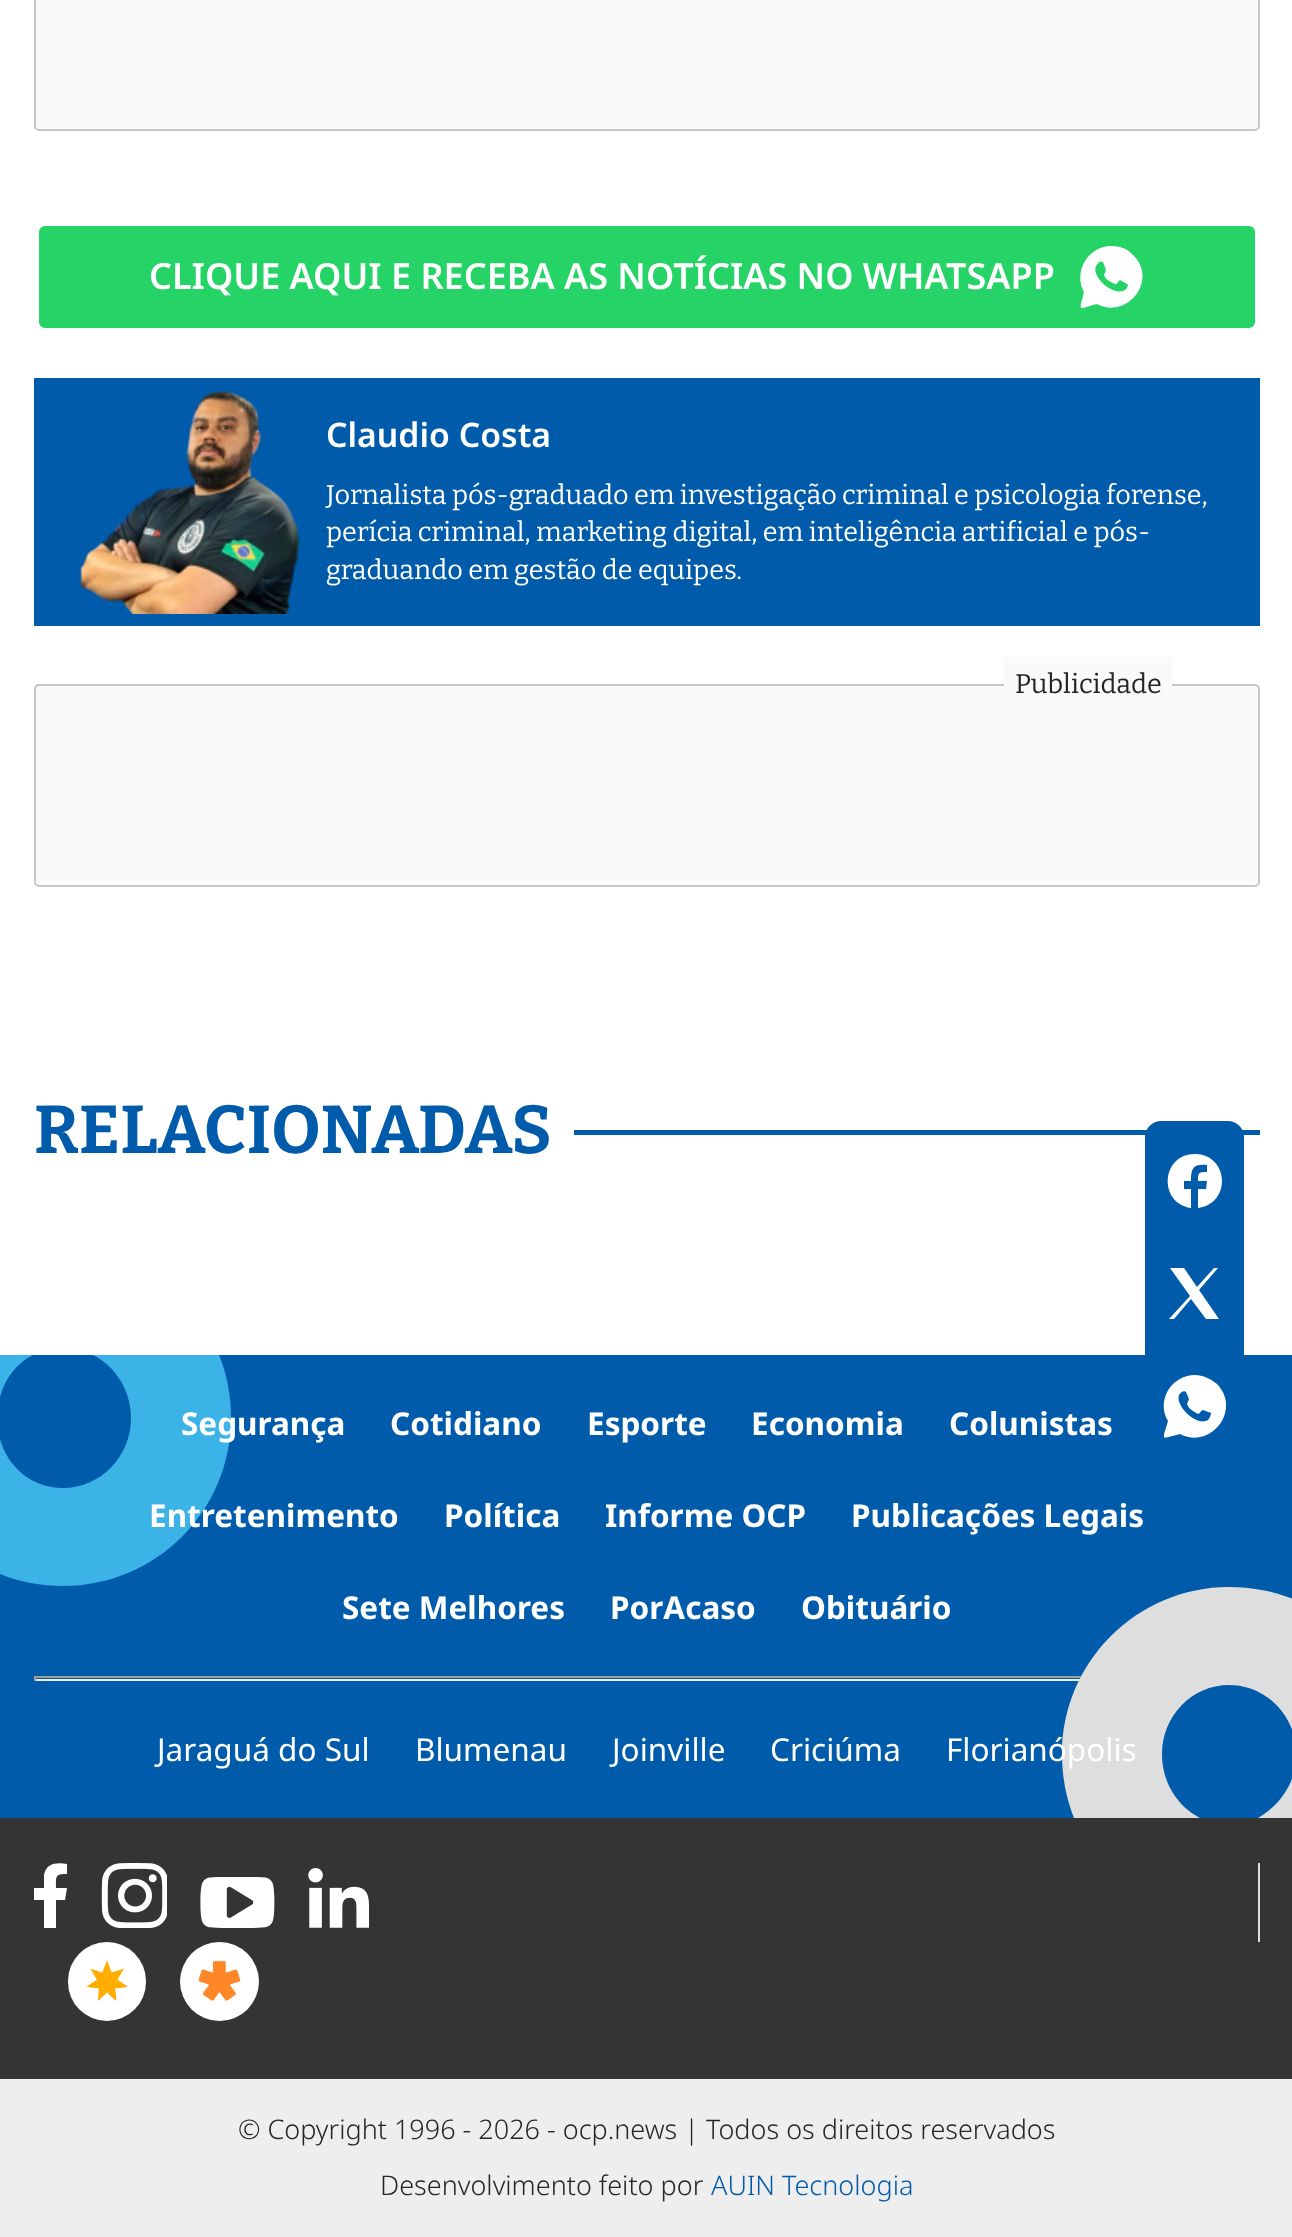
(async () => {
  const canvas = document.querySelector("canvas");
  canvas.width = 1292;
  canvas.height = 2237;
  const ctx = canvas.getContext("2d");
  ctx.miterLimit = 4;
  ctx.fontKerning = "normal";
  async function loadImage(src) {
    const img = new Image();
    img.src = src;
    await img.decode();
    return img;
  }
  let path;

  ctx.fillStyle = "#ffffff";
  ctx.fillRect(0, 0, 1292, 2237);
  ctx.fillStyle = "#fafafa";
  ctx.beginPath();
  ctx.roundRect(35, -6, 1224, 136, 4);
  ctx.fill();
  ctx.strokeStyle = "#c7c7c7";
  ctx.lineWidth = 2;
  ctx.stroke();
  ctx.fillStyle = "#25d366";
  ctx.beginPath();
  ctx.roundRect(36.5, 223.5, 1221, 107, 8.5);
  ctx.fill();
  ctx.strokeStyle = "#ffffff";
  ctx.lineWidth = 5;
  ctx.stroke();
  ctx.fillStyle = "#ffffff";
  path = new Path2D("M1111 246C1088 246 1073 272 1084 292C1079 313 1077 309 1097 304C1127 320 1159 280 1133 255C1128 249 1120 246 1111 246ZM1127 288L1125 290C1114 297 1091 277 1096 266C1097 264 1100 260 1103 262L1106 270L1104 275C1105 277 1107 280 1109 281L1115 284C1117 285 1118 281 1120 280L1127 284L1128 285Z");
  ctx.fill(path);
  ctx.fillStyle = "#005baa";
  ctx.fillRect(34, 378, 1226, 248);
  ctx.drawImage(await loadImage("img/1.png"), 80, 390, 220, 224);
  ctx.fillRect(574, 1130, 686, 5);
  ctx.fillRect(0, 1355, 1292, 463);
  ctx.beginPath();
  ctx.roundRect(1145, 1121, 99, 360, 16);
  ctx.fill();
  ctx.fillStyle = "#ffffff";
  path = new Path2D("M1195 1154C1161 1154 1158 1203 1191 1208V1189H1184V1181H1191C1191 1168 1193 1164 1207 1165V1172C1198 1172 1198 1173 1198 1181H1207L1206 1189H1198V1208C1232 1204 1229 1154 1195 1154Z");
  ctx.fill(path);
  path = new Path2D("M1170 1268L1190 1296L1169 1319H1174L1191 1299L1206 1319H1219L1199 1290L1218 1268H1214L1197 1287L1184 1268Z");
  ctx.fill(path);
  path = new Path2D("M1195 1375C1171 1375 1156 1401 1168 1421C1162 1442 1160 1439 1180 1434C1211 1450 1242 1410 1217 1384C1211 1379 1203 1375 1195 1375ZM1210 1417L1208 1420C1197 1427 1175 1406 1179 1395C1180 1393 1184 1390 1186 1392L1189 1399L1187 1404C1188 1407 1190 1409 1193 1411L1198 1414C1200 1414 1201 1410 1203 1410L1211 1413V1414Z");
  ctx.fill(path);
  ctx.fillStyle = "#fafafa";
  ctx.beginPath();
  ctx.roundRect(35, 685, 1224, 201, 4);
  ctx.fill();
  ctx.strokeStyle = "#c7c7c7";
  ctx.lineWidth = 2;
  ctx.stroke();
  ctx.fillRect(1004, 657, 168, 29);
  ctx.fillStyle = "#3bb3e7";
  path = new Path2D("M63 1488C33 1488 8 1468 0 1439V1574C19 1582 41 1586 63 1586C156 1586 231 1511 231 1418C231 1396 227 1374 219 1355H93C115 1366 131 1390 131 1418C131 1457 100 1488 63 1488ZM0 1355V1397C5 1378 17 1363 33 1355Z");
  ctx.fill(path, "evenodd");
  for (const [x, y, w, h, color] of [
    [34, 1676, 1048, 2, "#9f9f9f"],
    [34, 1679, 1046, 2, "#eeeeee"],
    [34, 1676, 2, 5, "#9f9f9f"],
  ]) {
    ctx.fillStyle = color;
    ctx.fillRect(x, y, w, h);
  }
  ctx.fillStyle = "#dedede";
  path = new Path2D("M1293 1818V1776C1287 1794 1274 1809 1258 1818ZM1229 1685C1259 1685 1284 1705 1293 1732V1599C1273 1591 1252 1587 1229 1587C1137 1587 1062 1662 1062 1754C1062 1777 1066 1798 1074 1818H1200C1177 1806 1162 1782 1162 1754C1162 1716 1192 1685 1229 1685Z");
  ctx.fill(path, "evenodd");
  ctx.fillStyle = "#343434";
  ctx.fillRect(0, 1818, 1292, 261);
  ctx.fillStyle = "#dedede";
  ctx.fillRect(1258, 1863, 2, 79);
  ctx.fillStyle = "#ffffff";
  path = new Path2D("M65 1900L67 1888H56C56 1876 55 1874 67 1874V1864C57 1862 46 1863 44 1875V1888H34V1900H44V1928H56V1900Z");
  ctx.fill(path);
  ctx.drawImage(await loadImage("img/2.png"), 101, 1863, 66, 65);
  ctx.drawImage(await loadImage("img/3.png"), 200, 1877, 75, 51);
  ctx.drawImage(await loadImage("img/4.png"), 308, 1868, 61, 60);
  ctx.beginPath();
  ctx.roundRect(68, 1942, 78, 79, 39);
  ctx.fill();
  ctx.drawImage(await loadImage("img/5.png"), 86, 1960, 42, 41);
  ctx.beginPath();
  ctx.arc(219.5, 1981.5, 39.5, 0, Math.PI * 2);
  ctx.fill();
  ctx.drawImage(await loadImage("img/6.png"), 198, 1960, 43, 41);
  ctx.fillStyle = "#eeeeee";
  ctx.fillRect(0, 2079, 1292, 158);
  ctx.font = "600 36px Noto Sans";
  ctx.fillStyle = "#ffffff";
  ctx.fillText("CLIQUE AQUI E RECEBA AS NOTÍCIAS NO WHATSAPP", 149, 289);
  ctx.font = "600 33.75px Noto Sans";
  ctx.fillText("Claudio Costa", 326, 447);
  ctx.font = "27px Bitter";
  for (const [text, x, y] of [
    ["Jornalista pós-graduado em investigação criminal e psicologia forense,", 326, 504],
    ["perícia criminal, marketing digital, em inteligência artificial e pós-", 326, 541],
    ["graduando em gestão de equipes.", 326, 579],
  ]) {
    ctx.fillText(text, x, y);
  }
  ctx.fillStyle = "#272425";
  ctx.fillText("Publicidade", 1015, 693);
  ctx.font = "bold 67.5px Bitter";
  ctx.fillStyle = "#005baa";
  ctx.fillText("RELACIONADAS", 34, 1153);
  ctx.font = "bold 31.5px Noto Sans";
  ctx.fillStyle = "#ffffff";
  for (const [text, x, y] of [
    ["Segurança", 181, 1435],
    ["Cotidiano", 390, 1435],
    ["Esporte", 587, 1435],
    ["Economia", 751, 1435],
    ["Colunistas", 949, 1435],
    ["Entretenimento", 149, 1527],
    ["Política", 444, 1527],
    ["Informe OCP", 605, 1527],
    ["Publicações Legais", 851, 1527],
    ["Sete Melhores", 342, 1619],
    ["PorAcaso", 610, 1619],
    ["Obituário", 801, 1619],
  ]) {
    ctx.fillText(text, x, y);
  }
  ctx.font = "31.5px Noto Sans";
  for (const [text, x, y] of [
    ["Jaraguá do Sul", 157, 1761],
    ["Blumenau", 415, 1761],
    ["Joinville", 612, 1761],
    ["Criciúma", 770, 1761],
    ["Florianópolis", 946, 1761],
  ]) {
    ctx.fillText(text, x, y);
  }
  ctx.font = "300 27px Noto Sans";
  ctx.fillStyle = "#272425";
  ctx.fillText("© Copyright 1996 - 2026 - ocp.news | Todos os direitos reservados", 238, 2139);
  ctx.fillText("Desenvolvimento feito por", 380, 2195);
  ctx.fillStyle = "#005baa";
  ctx.fillText("AUIN Tecnologia", 711, 2195);
})();
